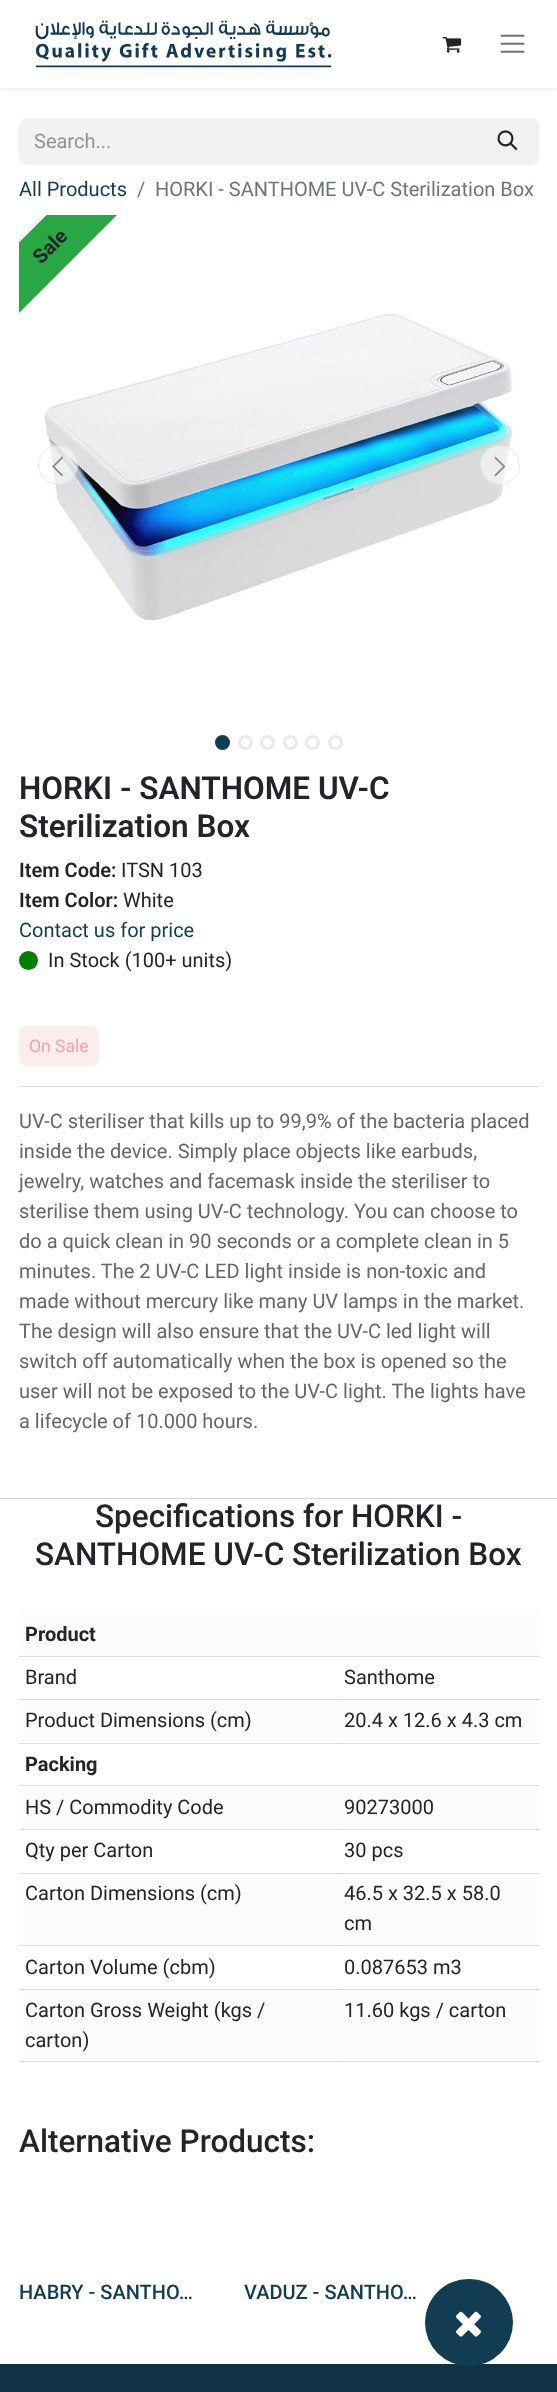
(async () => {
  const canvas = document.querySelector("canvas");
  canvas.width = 557;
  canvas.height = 2392;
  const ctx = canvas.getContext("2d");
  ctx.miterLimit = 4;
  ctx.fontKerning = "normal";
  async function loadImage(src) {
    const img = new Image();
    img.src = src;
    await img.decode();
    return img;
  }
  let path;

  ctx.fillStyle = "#ffffff";
  ctx.fillRect(0, 0, 557, 2392);
  for (const [x, y, w, h, color] of [
    [19, 1699, 521, 1, "#dededf"],
    [19, 1743, 521, 1, "#dededf"],
    [19, 1829, 521, 1, "#dededf"],
    [539, 1873, 1, 1, "#dededf"],
    [19, 1945, 521, 1, "#dededf"],
    [539, 1989, 1, 1, "#dededf"],
    [19, 2061, 521, 1, "#dededf"],
  ]) {
    ctx.fillStyle = color;
    ctx.fillRect(x, y, w, h);
  }
  ctx.fillStyle = "rgba(0, 0, 0, 0.1)";
  ctx.filter = "blur(2px)";
  ctx.beginPath();
  ctx.rect(0, 1, 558, 88);
  ctx.fill();
  ctx.filter = "none";
  ctx.fillStyle = "#ffffff";
  ctx.fillRect(0, 0, 557, 88);
  ctx.drawImage(await loadImage("img/1.png"), 35, 20, 297, 48);
  ctx.drawImage(await loadImage("img/2.png"), 442, 36, 20, 17);
  ctx.drawImage(await loadImage("img/3.png"), 500, 34, 25, 19);
  ctx.fillStyle = "#f3f2f2";
  ctx.beginPath();
  ctx.roundRect(19, 118, 459, 47, [8, 0, 0, 8]);
  ctx.fill();
  ctx.beginPath();
  ctx.roundRect(476.5, 118.5, 62, 46, [0, 7.5, 7.5, 0]);
  ctx.fill();
  ctx.strokeStyle = "#f3f2f2";
  ctx.stroke();
  ctx.drawImage(await loadImage("img/4.png"), 497, 130, 21, 21);
  ctx.save();
  ctx.beginPath();
  ctx.rect(19, 215, 520, 500);
  ctx.clip();
  ctx.fillStyle = "#28a745";
  path = new Path2D("M-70 331L135 127L170 162L-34 366Z");
  ctx.fill(path);
  ctx.restore();
  ctx.drawImage(await loadImage("img/5.png"), 44, 314, 470, 306);
  ctx.fillStyle = "rgba(255, 255, 255, 0.5)";
  ctx.beginPath();
  ctx.arc(58, 465, 20, 0, Math.PI * 2);
  ctx.fill();
  ctx.beginPath();
  ctx.arc(58, 465, 19.5, 0, Math.PI * 2);
  ctx.strokeStyle = "rgba(206, 212, 218, 0.5)";
  ctx.stroke();
  ctx.fillStyle = "rgba(33, 37, 41, 0.5)";
  path = new Path2D("M52 466.5L62 456.5L63 458L54.5 466.5L63 475L62 476.5Z");
  ctx.fill(path);
  ctx.fillStyle = "rgba(255, 255, 255, 0.5)";
  ctx.beginPath();
  ctx.arc(500, 465, 20, 0, Math.PI * 2);
  ctx.fill();
  ctx.beginPath();
  ctx.arc(500, 465, 19.5, 0, Math.PI * 2);
  ctx.stroke();
  ctx.fillStyle = "rgba(33, 37, 41, 0.5)";
  path = new Path2D("M505.5 466.5L495.5 476.5L494.5 475L503 466.5L494.5 458L495.5 456.5Z");
  ctx.fill(path);
  ctx.fillStyle = "#123c52";
  ctx.beginPath();
  ctx.arc(222.5, 742.5, 6, 0, Math.PI * 2);
  ctx.fill();
  ctx.strokeStyle = "#123c52";
  ctx.lineWidth = 3;
  ctx.stroke();
  ctx.beginPath();
  ctx.arc(245.5, 742.5, 6, 0, Math.PI * 2);
  ctx.strokeStyle = "#e7eaed";
  ctx.stroke();
  ctx.beginPath();
  ctx.arc(267.5, 742.5, 6, 0, Math.PI * 2);
  ctx.stroke();
  ctx.beginPath();
  ctx.arc(290.5, 742.5, 6, 0, Math.PI * 2);
  ctx.stroke();
  ctx.beginPath();
  ctx.arc(312.5, 742.5, 6, 0, Math.PI * 2);
  ctx.stroke();
  ctx.beginPath();
  ctx.arc(335.5, 742.5, 6, 0, Math.PI * 2);
  ctx.stroke();
  ctx.fillStyle = "#008000";
  ctx.beginPath();
  ctx.arc(28.5, 960.5, 9.5, 0, Math.PI * 2);
  ctx.fill();
  for (const [x, y, w, h, color] of [
    [19, 1086, 520, 1, "#dededf"],
    [0, 1498, 557, 1, "#ced4da"],
    [19, 1614, 520, 41, "#fcfcfc"],
    [19, 1656, 521, 1, "#dededf"],
    [338, 1699, 1, 1, "#c2c2c4"],
    [19, 1700, 520, 41, "#fcfcfc"],
    [338, 1743, 1, 1, "#c2c2c4"],
    [19, 1785, 521, 1, "#dededf"],
    [19, 1786, 520, 42, "#fcfcfc"],
    [338, 1829, 1, 1, "#c2c2c4"],
    [19, 1874, 520, 71, "#fcfcfc"],
    [19, 1873, 520, 1, "#dbdcdc"],
    [338, 1873, 1, 1, "#bfc1c1"],
    [338, 1945, 1, 1, "#c2c2c4"],
    [19, 1990, 520, 71, "#fcfcfc"],
    [19, 1989, 520, 1, "#dbdcdc"],
    [338, 1989, 1, 1, "#bfc1c1"],
    [338, 2061, 1, 1, "#c2c2c4"],
    [0, 2364, 557, 28, "#0f3345"],
  ]) {
    ctx.fillStyle = color;
    ctx.fillRect(x, y, w, h);
  }
  ctx.fillStyle = "#123c52";
  ctx.beginPath();
  ctx.roundRect(425, 2279, 88, 87, 43.5);
  ctx.fill();
  ctx.drawImage(await loadImage("img/6.png"), 456, 2311, 25, 26);
  ctx.font = "20px Roboto";
  ctx.fillStyle = "#909294";
  ctx.fillText("Search...", 34, 148);
  ctx.fillStyle = "#123c52";
  ctx.fillText("All Products", 19, 196);
  ctx.fillStyle = "#6c757d";
  ctx.fillText("/", 137, 196);
  ctx.fillText("HORKI - SANTHOME UV-C Sterilization Box", 155, 196);
  ctx.font = "bold 20px Roboto";
  ctx.fillStyle = "#212529";
  ctx.save();
  ctx.translate(41, 265);
  ctx.rotate(-45 * Math.PI / 180);
  ctx.fillText("Sale", 0, 0);
  ctx.restore();
  ctx.font = "600 31.5px Roboto";
  ctx.fillText("HORKI - SANTHOME UV-C", 19, 799);
  ctx.fillText("Sterilization Box", 19, 837);
  ctx.font = "600 20px Roboto";
  ctx.fillText("Item Code:", 19, 877);
  ctx.font = "20px Roboto";
  ctx.fillText("ITSN 103", 121, 877);
  ctx.font = "600 20px Roboto";
  ctx.fillText("Item Color:", 19, 907);
  ctx.font = "20px Roboto";
  ctx.fillText("White", 123, 907);
  ctx.fillStyle = "#123c52";
  ctx.fillText("Contact us for price", 19, 937);
  ctx.fillStyle = "#212529";
  ctx.fillText("In Stock (100+ units)", 48, 967);
  ctx.font = "17.5px Roboto";
  ctx.fillStyle = "#fe9f9f";
  ctx.fillText("On Sale", 29, 1052);
  ctx.fillStyle = "rgba(254, 159, 159, 0.2)";
  ctx.beginPath();
  ctx.roundRect(19, 1026, 80, 40, 8);
  ctx.fill();
  ctx.font = "20px Roboto";
  ctx.fillStyle = "#646669";
  for (const [text, x, y] of [
    ["UV-C steriliser that kills up to 99,9% of the bacteria placed", 19, 1128],
    ["inside the device. Simply place objects like earbuds,", 19, 1158],
    ["jewelry, watches and facemask inside the steriliser to", 19, 1188],
    ["sterilise them using UV-C technology. You can choose to", 19, 1218],
    ["do a quick clean in 90 seconds or a complete clean in 5", 19, 1248],
    ["minutes. The 2 UV-C LED light inside is non-toxic and", 19, 1278],
    ["made without mercury like many UV lamps in the market.", 19, 1308],
    ["The design will also ensure that the UV-C led light will", 19, 1338],
    ["switch off automatically when the box is opened so the", 19, 1368],
    ["user will not be exposed to the UV-C light. The lights have", 19, 1398],
    ["a lifecycle of 10.000 hours.", 19, 1428],
  ]) {
    ctx.fillText(text, x, y);
  }
  ctx.font = "500 31.5px Roboto";
  ctx.fillStyle = "#212529";
  ctx.fillText("Specifications for HORKI -", 95, 1527);
  ctx.fillText("SANTHOME UV-C Sterilization Box", 35, 1565);
  ctx.font = "bold 20px Roboto";
  ctx.fillText("Product", 25, 1641);
  ctx.font = "20px Roboto";
  for (const [text, x, y] of [
    ["Brand", 25, 1684],
    ["Santhome", 344, 1684],
    ["Product Dimensions (cm)", 25, 1727],
    ["20.4 x 12.6 x 4.3 cm", 344, 1727],
  ]) {
    ctx.fillText(text, x, y);
  }
  ctx.font = "bold 20px Roboto";
  ctx.fillText("Packing", 25, 1771);
  ctx.font = "20px Roboto";
  for (const [text, x, y] of [
    ["HS / Commodity Code", 25, 1814],
    ["90273000", 344, 1814],
    ["Qty per Carton", 25, 1857],
    ["30 pcs", 344, 1857],
    ["Carton Dimensions (cm)", 25, 1900],
    ["46.5 x 32.5 x 58.0", 344, 1900],
    ["cm", 344, 1930],
    ["Carton Volume (cbm)", 25, 1974],
    ["0.087653 m3", 344, 1974],
    ["Carton Gross Weight (kgs /", 25, 2017],
    ["carton)", 25, 2047],
    ["11.60 kgs / carton", 344, 2017],
  ]) {
    ctx.fillText(text, x, y);
  }
  ctx.font = "500 31.5px Roboto";
  ctx.fillText("Alternative Products:", 19, 2152);
  ctx.font = "500 20px Roboto";
  ctx.fillStyle = "#123c52";
  ctx.fillText("HABRY - SANTHO…", 19, 2299);
  ctx.fillText("VADUZ - SANTHO…", 244, 2299);
})();
